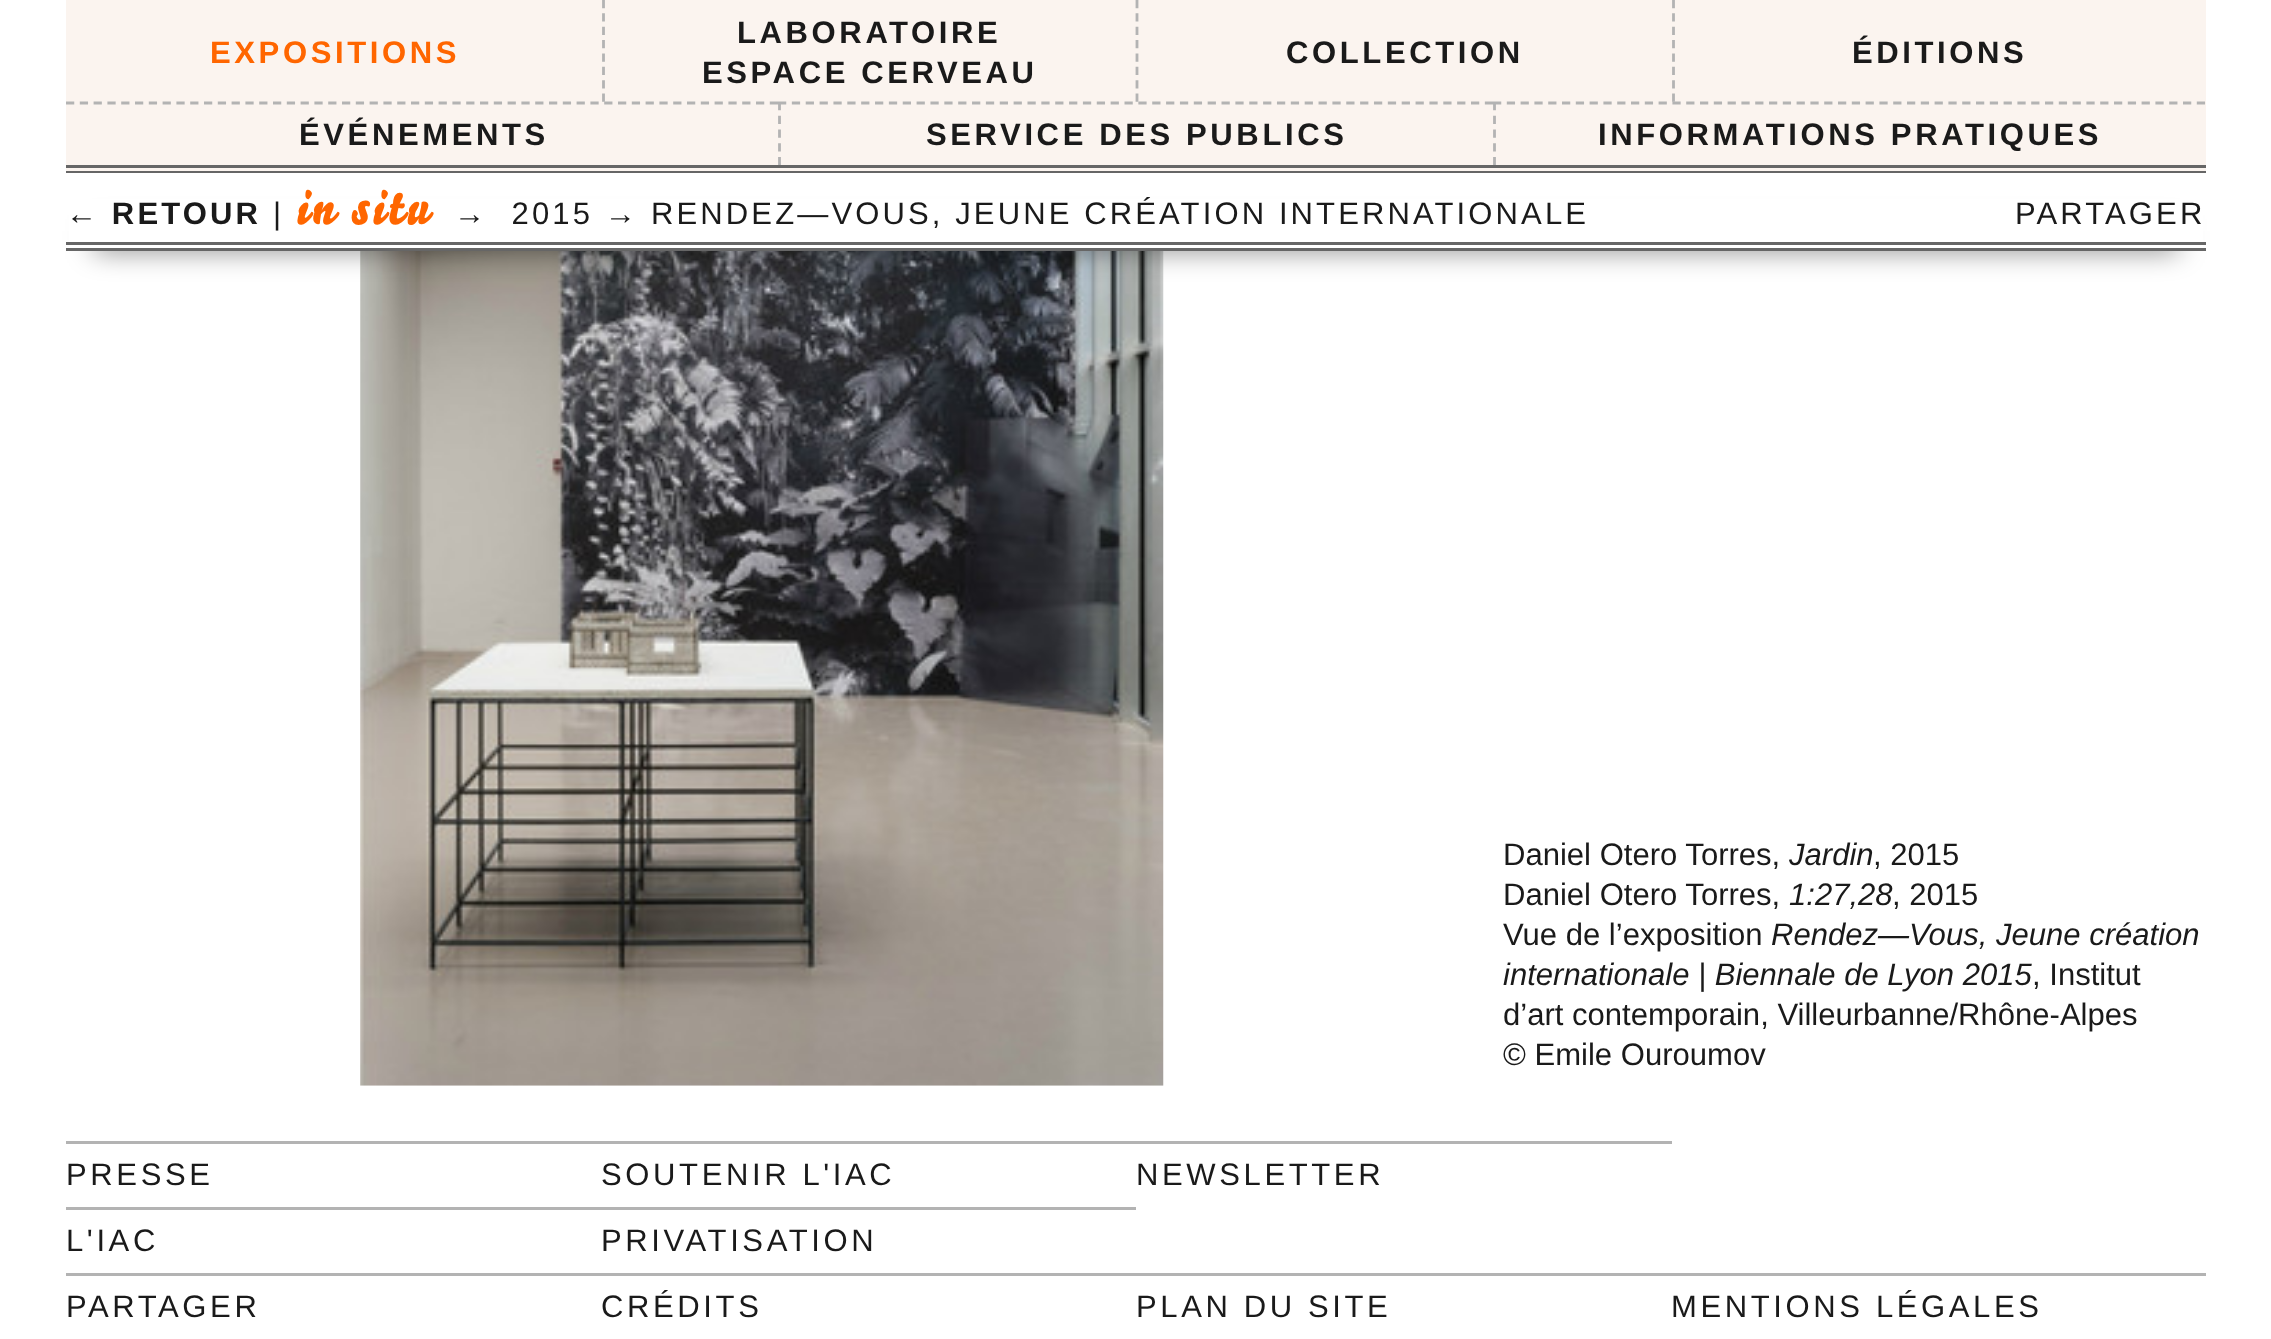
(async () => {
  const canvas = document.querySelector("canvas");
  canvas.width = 2271;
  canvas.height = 1339;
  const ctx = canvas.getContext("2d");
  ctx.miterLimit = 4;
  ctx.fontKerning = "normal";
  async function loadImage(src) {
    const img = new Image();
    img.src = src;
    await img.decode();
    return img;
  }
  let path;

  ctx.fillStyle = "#ffffff";
  ctx.fillRect(0, 0, 2271, 1339);
  for (const [x, y, w, h, color] of [
    [66, 0, 2140, 171, "#fbf4ef"],
    [66, 165, 2140, 3, "#666666"],
    [66, 171, 2140, 2, "#666666"],
  ]) {
    ctx.fillStyle = color;
    ctx.fillRect(x, y, w, h);
  }
  path = new Path2D("M603.5 0V102");
  ctx.strokeStyle = "#b3b3b3";
  ctx.lineWidth = 2.8;
  ctx.setLineDash([8.25, 5.12]);
  ctx.stroke(path);
  path = new Path2D("M1137 0V102");
  ctx.stroke(path);
  path = new Path2D("M1673.5 0V102");
  ctx.stroke(path);
  path = new Path2D("M66 103H778");
  ctx.setLineDash([8.25, 5.55]);
  ctx.stroke(path);
  path = new Path2D("M778 103H1493");
  ctx.setLineDash([8.25, 5.61]);
  ctx.stroke(path);
  path = new Path2D("M779.5 102V165");
  ctx.setLineDash([8.25, 5.5]);
  ctx.stroke(path);
  path = new Path2D("M1493 103H2205.5");
  ctx.setLineDash([8.25, 5.55]);
  ctx.stroke(path);
  path = new Path2D("M1494.5 102V165");
  ctx.setLineDash([8.25, 5.5]);
  ctx.stroke(path);
  ctx.drawImage(await loadImage("img/1.png"), 360, 251, 804, 835);
  ctx.fillStyle = "rgba(0, 0, 0, 0.5)";
  ctx.filter = "blur(14px)";
  ctx.beginPath();
  ctx.rect(94, 228, 2084, 22);
  ctx.fill();
  ctx.filter = "none";
  for (const [x, y, w, h, color] of [
    [69, 199, 2134, 49, "#ffffff"],
    [66, 242, 2140, 3, "#666666"],
    [66, 248, 2140, 3, "#666666"],
    [66, 1141, 1606, 3, "#b3b3b3"],
    [66, 1207, 1070, 3, "#b3b3b3"],
    [66, 1273, 2140, 3, "#b3b3b3"],
  ]) {
    ctx.fillStyle = color;
    ctx.fillRect(x, y, w, h);
  }
  ctx.letterSpacing = "3.6px";
  ctx.font = "bold 31.05px Liberation Sans";
  ctx.fillStyle = "#ff6600";
  ctx.fillText("EXPOSITIONS", 210, 63);
  ctx.fillStyle = "#1a1a1a";
  for (const [text, x, y] of [
    ["LABORATOIRE", 737, 43],
    ["ESPACE CERVEAU", 702, 83],
    ["COLLECTION", 1286, 63],
    ["ÉDITIONS", 1852, 63],
    ["ÉVÉNEMENTS", 299, 145],
    ["SERVICE DES PUBLICS", 926, 145],
    ["INFORMATIONS PRATIQUES", 1598, 145],
  ]) {
    ctx.fillText(text, x, y);
  }
  ctx.letterSpacing = "3.1px";
  ctx.fillText("← RETOUR", 66, 224);
  ctx.font = "31.05px Liberation Sans";
  ctx.fillText("|", 273, 224);
  ctx.font = "49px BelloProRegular";
  ctx.fillStyle = "#ff6600";
  ctx.fillText("in situ", 296, 224);
  ctx.font = "31.05px Liberation Sans";
  ctx.fillStyle = "#1a1a1a";
  for (const [text, x, y] of [
    ["→  2015 →", 454, 224],
    ["RENDEZ—VOUS, JEUNE CRÉATION INTERNATIONALE", 651, 224],
    ["PARTAGER", 2015, 224],
  ]) {
    ctx.fillText(text, x, y);
  }
  ctx.letterSpacing = "0px";
  ctx.fillText("Daniel Otero Torres,", 1503, 865);
  ctx.font = "italic 31.05px Liberation Sans";
  ctx.fillText("Jardin", 1789, 865);
  ctx.font = "31.05px Liberation Sans";
  ctx.fillText(", 2015", 1873, 865);
  ctx.fillText("Daniel Otero Torres,", 1503, 905);
  ctx.font = "italic 31.05px Liberation Sans";
  ctx.fillText("1:27,28", 1789, 905);
  ctx.font = "31.05px Liberation Sans";
  ctx.fillText(", 2015", 1892, 905);
  ctx.fillText("Vue de l’exposition", 1503, 945);
  ctx.font = "italic 31.05px Liberation Sans";
  ctx.fillText("Rendez—Vous, Jeune création", 1771, 945);
  ctx.fillText("internationale | Biennale de Lyon 2015", 1503, 985);
  ctx.font = "31.05px Liberation Sans";
  for (const [text, x, y] of [
    [", Institut", 2032, 985],
    ["d’art contemporain, Villeurbanne/Rhône-Alpes", 1503, 1025],
    ["© Emile Ouroumov", 1503, 1065],
  ]) {
    ctx.fillText(text, x, y);
  }
  ctx.letterSpacing = "3.6px";
  for (const [text, x, y] of [
    ["PRESSE", 66, 1185],
    ["SOUTENIR L'IAC", 601, 1185],
    ["NEWSLETTER", 1136, 1185],
    ["L'IAC", 66, 1251],
    ["PRIVATISATION", 601, 1251],
    ["PARTAGER", 66, 1317],
    ["CRÉDITS", 601, 1317],
    ["PLAN DU SITE", 1136, 1317],
    ["MENTIONS LÉGALES", 1671, 1317],
  ]) {
    ctx.fillText(text, x, y);
  }
})();
